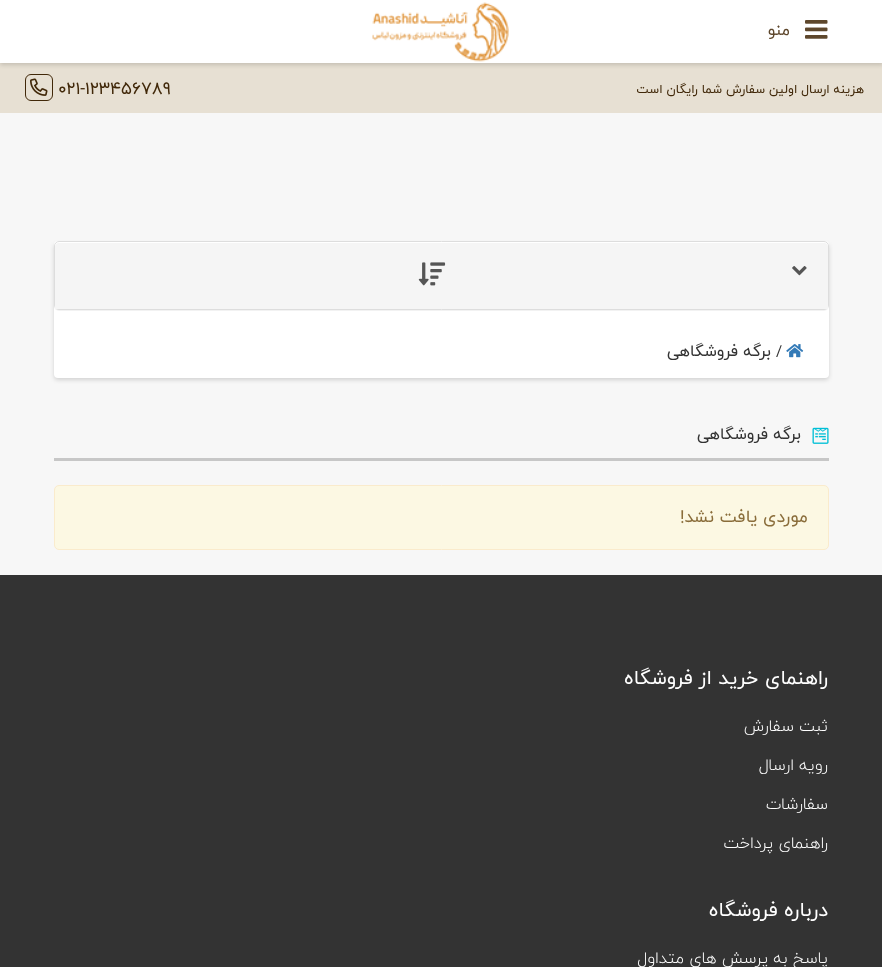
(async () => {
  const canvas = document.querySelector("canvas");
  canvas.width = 882;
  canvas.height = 967;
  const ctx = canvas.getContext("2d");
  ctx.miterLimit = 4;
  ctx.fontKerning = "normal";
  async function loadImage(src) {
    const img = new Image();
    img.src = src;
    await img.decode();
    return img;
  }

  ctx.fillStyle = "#e7e0d3";
  ctx.fillRect(0, 0, 882, 967);
  ctx.fillStyle = "rgba(0, 0, 0, 0.15)";
  ctx.filter = "blur(2px)";
  ctx.beginPath();
  ctx.rect(0, 3, 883, 62);
  ctx.fill();
  ctx.filter = "none";
  ctx.fillStyle = "#ffffff";
  ctx.fillRect(0, 0, 882, 63);
  ctx.drawImage(await loadImage("img/1.png"), 805, 20, 23, 19);
  ctx.drawImage(await loadImage("img/2.png"), 372, 2, 137, 60);
  ctx.beginPath();
  ctx.roundRect(25.5, 74.5, 27, 26, 5.5);
  ctx.strokeStyle = "#412809";
  ctx.stroke();
  ctx.drawImage(await loadImage("img/3.png"), 30, 78, 18, 18);
  ctx.fillStyle = "#f7f7f7";
  ctx.fillRect(0, 113, 882, 462);
  ctx.fillStyle = "rgba(0, 0, 0, 0.15)";
  ctx.filter = "blur(2px)";
  ctx.beginPath();
  ctx.roundRect(54, 244, 775, 136, 4);
  ctx.fill();
  ctx.filter = "none";
  ctx.fillStyle = "#ffffff";
  ctx.beginPath();
  ctx.roundRect(54, 241, 775, 137, 4);
  ctx.fill();
  ctx.fillStyle = "rgba(0, 0, 0, 0.05)";
  ctx.filter = "blur(0.5px)";
  ctx.beginPath();
  ctx.roundRect(54, 243, 775, 68, 5);
  ctx.fill();
  ctx.filter = "none";
  ctx.fillStyle = "#ffffff";
  ctx.beginPath();
  ctx.roundRect(54.5, 241.5, 774, 68, 4.5);
  ctx.fill();
  ctx.strokeStyle = "#dddddd";
  ctx.stroke();
  ctx.fillStyle = "#f5f5f5";
  ctx.beginPath();
  ctx.roundRect(55, 243, 773, 66, [4, 4, 0, 0]);
  ctx.fill();
  ctx.drawImage(await loadImage("img/4.png"), 792, 266, 15, 10);
  ctx.drawImage(await loadImage("img/5.png"), 418, 262, 28, 24);
  ctx.drawImage(await loadImage("img/6.png"), 786, 344, 18, 14);
  ctx.fillStyle = "#c7c7c7";
  ctx.fillRect(54, 458, 775, 3);
  ctx.drawImage(await loadImage("img/7.png"), 812, 427, 17, 17);
  ctx.fillStyle = "#fcf8e3";
  ctx.beginPath();
  ctx.roundRect(54.5, 485.5, 774, 64, 4.5);
  ctx.fill();
  ctx.strokeStyle = "#faebcc";
  ctx.stroke();
  ctx.fillStyle = "#333333";
  ctx.fillRect(0, 575, 882, 392);
  ctx.direction = "rtl";
  ctx.font = "16.25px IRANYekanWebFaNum";
  ctx.fillStyle = "#5e472c";
  ctx.fillText("منو", 790, 35);
  ctx.font = "12.5px IRANYekanWebFaNum";
  ctx.fillStyle = "#412809";
  ctx.fillText("هزینه ارسال اولین سفارش شما رایگان است", 864, 93);
  ctx.direction = "ltr";
  ctx.font = "17.5px IRANYekanWebFaNum";
  ctx.fillText("۰۲۱-۱۲۳۴۵۶۷۸۹", 58, 94);
  ctx.font = "15px IRANYekanWebFaNum";
  ctx.fillStyle = "#333333";
  ctx.fillText("/", 776, 356);
  ctx.direction = "rtl";
  ctx.font = "16.25px IRANYekanWebFaNum";
  ctx.fillText("برگه فروشگاهی", 771, 356);
  ctx.fillText("برگه فروشگاهی", 801, 439);
  ctx.font = "17.5px IRANYekanWebFaNum";
  ctx.fillStyle = "#8a6d3b";
  ctx.fillText("موردی یافت نشد!", 808, 522);
  ctx.font = "20px IRANYekanWebFaNum";
  ctx.fillStyle = "#ffffff";
  ctx.fillText("راهنمای خرید از فروشگاه", 828, 684);
  ctx.font = "300 16.25px IRANYekanWebFaNum";
  for (const [text, x, y] of [
    ["ثبت سفارش", 828, 731],
    ["رویه ارسال", 828, 770],
    ["سفارشات", 828, 809],
    ["راهنمای پرداخت", 828, 848],
  ]) {
    ctx.fillText(text, x, y);
  }
  ctx.font = "20px IRANYekanWebFaNum";
  ctx.fillText("درباره فروشگاه", 828, 916);
  ctx.font = "300 16.25px IRANYekanWebFaNum";
  ctx.fillText("پاسخ به پرسش های متداول", 828, 963);
})();
